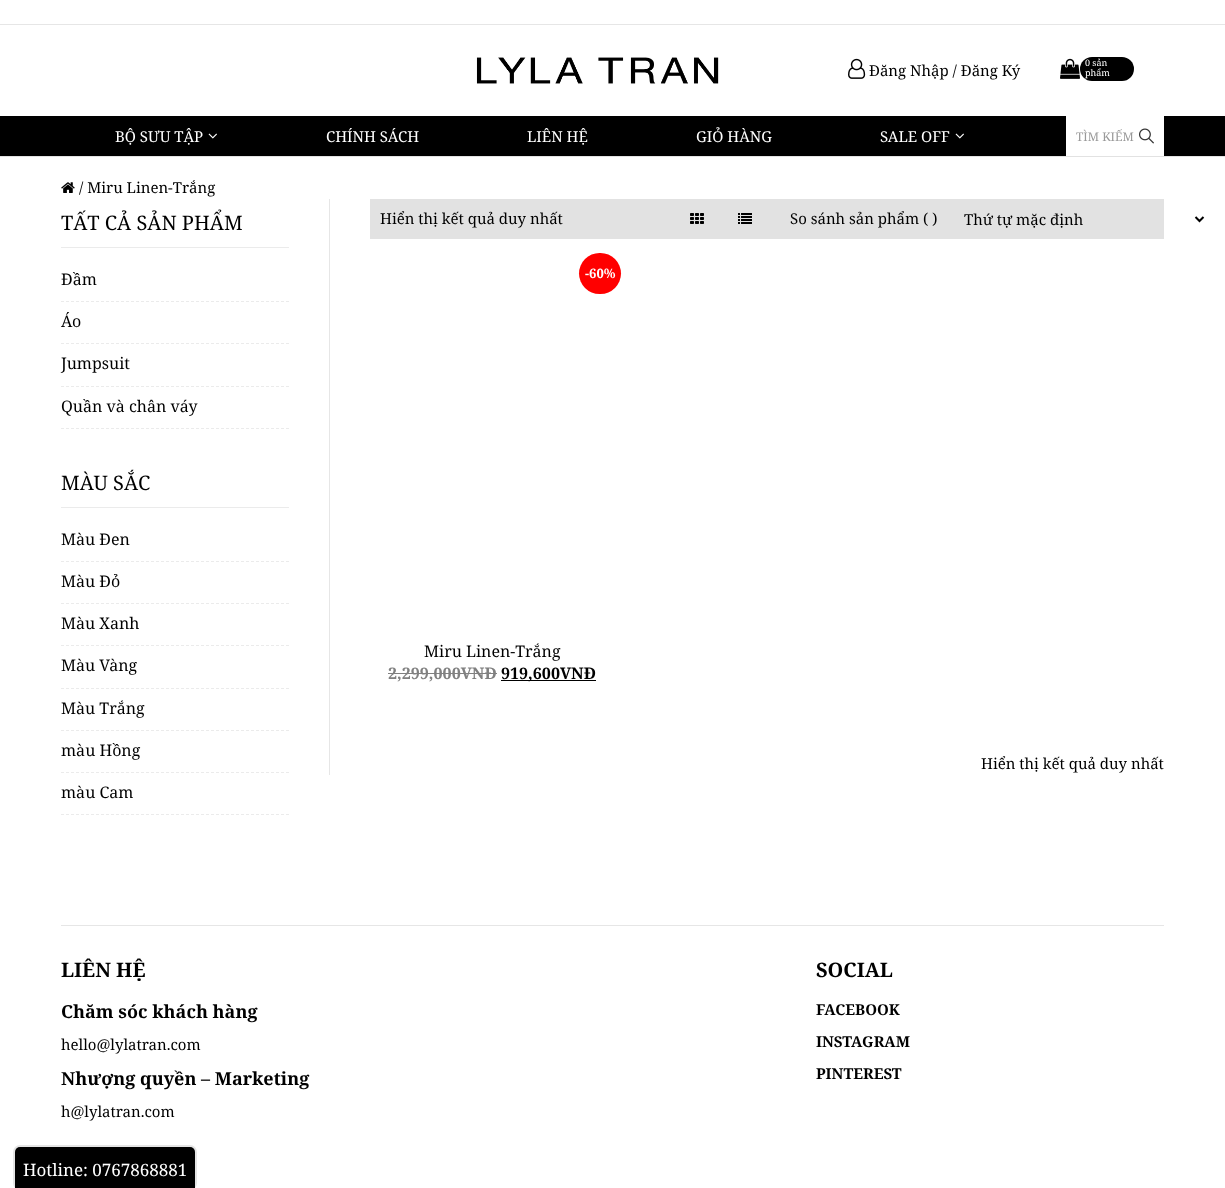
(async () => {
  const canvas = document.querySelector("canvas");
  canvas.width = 1225;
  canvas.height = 1188;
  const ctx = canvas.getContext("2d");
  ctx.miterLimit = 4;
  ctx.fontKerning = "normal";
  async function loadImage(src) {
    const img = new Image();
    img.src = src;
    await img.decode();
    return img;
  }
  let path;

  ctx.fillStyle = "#ffffff";
  ctx.fillRect(0, 0, 1225, 1188);
  ctx.fillStyle = "#e6e6e6";
  ctx.fillRect(0, 24, 1225, 1);
  ctx.drawImage(await loadImage("img/1.png"), 476, 57, 243, 27);
  ctx.drawImage(await loadImage("img/2.png"), 848, 58, 18, 21);
  ctx.drawImage(await loadImage("img/3.png"), 1060, 58, 20, 21);
  ctx.fillStyle = "#000000";
  ctx.beginPath();
  ctx.roundRect(1080, 57, 54, 24, 12);
  ctx.fill();
  ctx.fillRect(0, 116, 1225, 40);
  ctx.fillStyle = "#e2e2e2";
  ctx.fillRect(0, 156, 1225, 1);
  ctx.drawImage(await loadImage("img/4.png"), 208, 133, 9, 6);
  ctx.drawImage(await loadImage("img/4.png"), 955, 133, 9, 6);
  ctx.fillStyle = "#ffffff";
  ctx.fillRect(1066, 116, 98, 40);
  ctx.drawImage(await loadImage("img/5.png"), 1139, 128, 15, 16);
  ctx.drawImage(await loadImage("img/6.png"), 61, 182, 14, 11);
  ctx.fillStyle = "#ebebeb";
  ctx.fillRect(61, 247, 228, 1);
  path = new Path2D("M61 301.5H289");
  ctx.strokeStyle = "#ebebeb";
  ctx.setLineDash([3, 2]);
  ctx.stroke(path);
  path = new Path2D("M61 343.5H289");
  ctx.stroke(path);
  path = new Path2D("M61 386.5H289");
  ctx.stroke(path);
  path = new Path2D("M61 428.5H289");
  ctx.stroke(path);
  ctx.fillRect(61, 507, 228, 1);
  path = new Path2D("M61 561.5H289");
  ctx.stroke(path);
  path = new Path2D("M61 603.5H289");
  ctx.stroke(path);
  path = new Path2D("M61 645.5H289");
  ctx.stroke(path);
  path = new Path2D("M61 688.5H289");
  ctx.stroke(path);
  path = new Path2D("M61 730.5H289");
  ctx.stroke(path);
  path = new Path2D("M61 772.5H289");
  ctx.stroke(path);
  path = new Path2D("M61 814.5H289");
  ctx.stroke(path);
  ctx.fillStyle = "#e6e6e6";
  ctx.fillRect(329, 199, 1, 576);
  ctx.fillStyle = "#e2e2e2";
  ctx.fillRect(370, 199, 794, 40);
  ctx.drawImage(await loadImage("img/7.png"), 690, 213, 14, 11);
  ctx.drawImage(await loadImage("img/8.png"), 738, 213, 14, 11);
  path = new Path2D("M1195.5 217L1199.5 221L1203.5 217");
  ctx.strokeStyle = "#000000";
  ctx.lineWidth = 2;
  ctx.setLineDash([]);
  ctx.stroke(path);
  ctx.fillStyle = "#ff0000";
  ctx.beginPath();
  ctx.roundRect(579, 253, 42, 41, 20.5);
  ctx.fill();
  for (const [x, y, w, h, color] of [
    [388, 673, 109, 1, "#808080"],
    [501, 680, 95, 1, "#000000"],
    [61, 925, 1103, 1, "#e6e6e6"],
  ]) {
    ctx.fillStyle = color;
    ctx.fillRect(x, y, w, h);
  }
  ctx.fillStyle = "rgba(0, 0, 0, 0.1)";
  ctx.filter = "blur(0.5px)";
  ctx.beginPath();
  ctx.roundRect(13, 1145, 184, 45, 7);
  ctx.fill();
  ctx.filter = "none";
  ctx.fillStyle = "#000000";
  ctx.beginPath();
  ctx.roundRect(15, 1147, 180, 41, [5, 5, 0, 0]);
  ctx.fill();
  ctx.font = "15px Noto Serif";
  ctx.fillText("Đăng Nhập / Đăng Ký", 869, 76);
  ctx.font = "9px Noto Serif";
  ctx.fillStyle = "#ffffff";
  ctx.fillText("0 sản", 1085, 66);
  ctx.fillText("phẩm", 1085, 76);
  ctx.font = "15px Noto Serif";
  for (const [text, x, y] of [
    ["BỘ SƯU TẬP", 115, 142],
    ["CHÍNH SÁCH", 326, 142],
    ["LIÊN HỆ", 527, 142],
    ["GIỎ HÀNG", 696, 142],
    ["SALE OFF", 880, 142],
  ]) {
    ctx.fillText(text, x, y);
  }
  ctx.font = "12px Noto Serif";
  ctx.fillStyle = "#999999";
  ctx.fillText("TÌM KIẾM", 1076, 141);
  ctx.font = "15px Noto Serif";
  ctx.fillStyle = "#000000";
  ctx.fillText("/ Miru Linen-Trắng", 79, 193);
  ctx.font = "20px Noto Serif";
  ctx.fillText("TẤT CẢ SẢN PHẨM", 61, 230);
  ctx.font = "16px Noto Serif";
  for (const [text, x, y] of [
    ["Đầm", 61, 285],
    ["Áo", 61, 327],
    ["Jumpsuit", 61, 369],
    ["Quần và chân váy", 61, 412],
  ]) {
    ctx.fillText(text, x, y);
  }
  ctx.font = "20px Noto Serif";
  ctx.fillText("MÀU SẮC", 61, 490);
  ctx.font = "16px Noto Serif";
  for (const [text, x, y] of [
    ["Màu Đen", 61, 545],
    ["Màu Đỏ", 61, 587],
    ["Màu Xanh", 61, 629],
    ["Màu Vàng", 61, 671],
    ["Màu Trắng", 61, 714],
    ["màu Hồng", 61, 756],
    ["màu Cam", 61, 798],
  ]) {
    ctx.fillText(text, x, y);
  }
  ctx.font = "15px Noto Serif";
  for (const [text, x, y] of [
    ["Hiển thị kết quả duy nhất", 380, 224],
    ["So sánh sản phẩm ( )", 790, 224],
    ["Thứ tự mặc định", 964, 225],
  ]) {
    ctx.fillText(text, x, y);
  }
  ctx.font = "bold 13px Noto Serif";
  ctx.fillStyle = "#ffffff";
  ctx.fillText("-60%", 585, 278);
  ctx.font = "16px Noto Serif";
  ctx.fillStyle = "#000000";
  ctx.fillText("Miru Linen-Trắng", 424, 657);
  ctx.font = "bold 16px Noto Serif";
  ctx.fillStyle = "#808080";
  ctx.fillText("2,299,000VNĐ", 388, 679);
  ctx.fillStyle = "#000000";
  ctx.fillText("919,600VNĐ", 501, 679);
  ctx.font = "15px Noto Serif";
  ctx.fillText("Hiển thị kết quả duy nhất", 981, 769);
  ctx.font = "bold 20px Noto Serif";
  ctx.fillText("LIÊN HỆ", 61, 977);
  ctx.font = "bold 18px Noto Serif";
  ctx.fillText("Chăm sóc khách hàng", 61, 1018);
  ctx.font = "15px Noto Serif";
  ctx.fillText("hello@lylatran.com", 61, 1050);
  ctx.font = "bold 18px Noto Serif";
  ctx.fillText("Nhượng quyền – Marketing", 61, 1085);
  ctx.font = "15px Noto Serif";
  ctx.fillText("h@lylatran.com", 61, 1117);
  ctx.font = "bold 20px Noto Serif";
  ctx.fillText("SOCIAL", 816, 977);
  ctx.font = "bold 15px Noto Serif";
  for (const [text, x, y] of [
    ["FACEBOOK", 816, 1015],
    ["INSTAGRAM", 816, 1047],
    ["PINTEREST", 816, 1079],
  ]) {
    ctx.fillText(text, x, y);
  }
  ctx.font = "17px Noto Serif";
  ctx.fillStyle = "#ffffff";
  ctx.fillText("Hotline: 0767868881", 23, 1176);
})();
